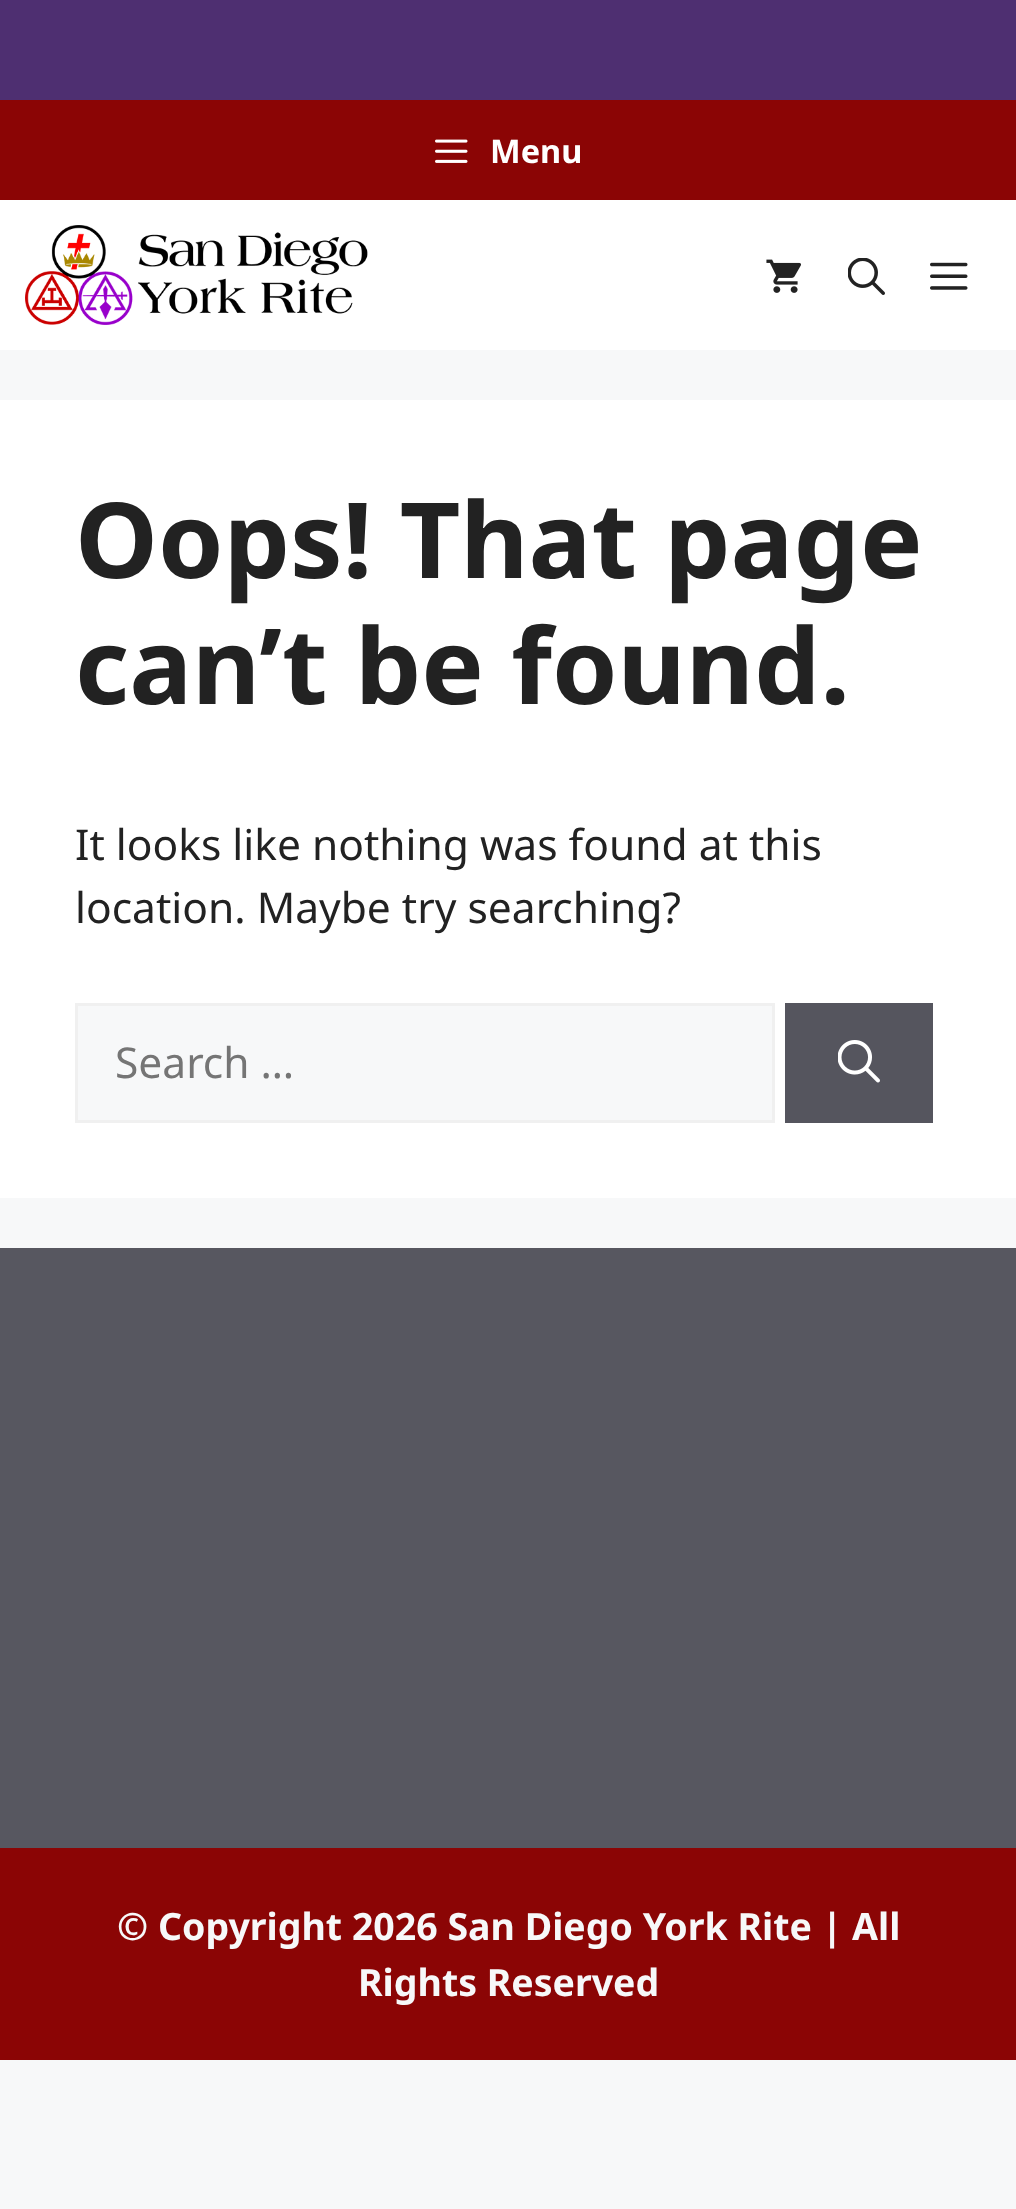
(async () => {
  const canvas = document.querySelector("canvas");
  canvas.width = 1016;
  canvas.height = 2209;
  const ctx = canvas.getContext("2d");
  ctx.miterLimit = 4;
  ctx.fontKerning = "normal";
  async function loadImage(src) {
    const img = new Image();
    img.src = src;
    await img.decode();
    return img;
  }

  ctx.fillStyle = "#f7f8f9";
  ctx.fillRect(0, 0, 1016, 2209);
  ctx.fillStyle = "#4e2f71";
  ctx.fillRect(0, 0, 1016, 100);
  ctx.fillStyle = "#8b0505";
  ctx.fillRect(0, 100, 1016, 100);
  ctx.drawImage(await loadImage("img/1.png"), 435, 139, 33, 24);
  ctx.fillStyle = "#ffffff";
  ctx.fillRect(0, 200, 1016, 150);
  ctx.drawImage(await loadImage("img/2.png"), 25, 225, 343, 100);
  ctx.drawImage(await loadImage("img/3.png"), 766, 259, 35, 34);
  ctx.drawImage(await loadImage("img/4.png"), 848, 258, 37, 37);
  ctx.drawImage(await loadImage("img/5.png"), 930, 262, 38, 28);
  ctx.fillRect(0, 400, 1016, 798);
  ctx.fillStyle = "#f7f8f9";
  ctx.beginPath();
  ctx.rect(76.5, 1004.5, 697, 117);
  ctx.fill();
  ctx.strokeStyle = "#f0f0f0";
  ctx.lineWidth = 3;
  ctx.stroke();
  ctx.fillStyle = "#55555e";
  ctx.fillRect(785, 1003, 148, 120);
  ctx.drawImage(await loadImage("img/6.png"), 838, 1040, 42, 43);
  ctx.fillStyle = "#575760";
  ctx.fillRect(0, 1248, 1016, 600);
  ctx.fillStyle = "#8b0505";
  ctx.fillRect(0, 1848, 1016, 212);
  ctx.font = "bold 32.5px Noto Sans";
  ctx.fillStyle = "#ffffff";
  ctx.fillText("Menu", 490, 163);
  ctx.font = "bold 105px Noto Sans";
  ctx.fillStyle = "#222222";
  ctx.fillText("Oops! That page", 75, 578);
  ctx.fillText("can’t be found.", 75, 704);
  ctx.font = "42.5px Noto Sans";
  ctx.fillText("It looks like nothing was found at this", 75, 860);
  ctx.fillText("location. Maybe try searching?", 75, 923);
  ctx.fillStyle = "#757575";
  ctx.fillText("Search …", 115, 1078);
  ctx.font = "bold 37.5px Noto Sans";
  ctx.fillStyle = "#f7f8f9";
  ctx.fillText("© Copyright 2026 San Diego York Rite | All", 117, 1940);
  ctx.fillText("Rights Reserved", 358, 1996);
})();
